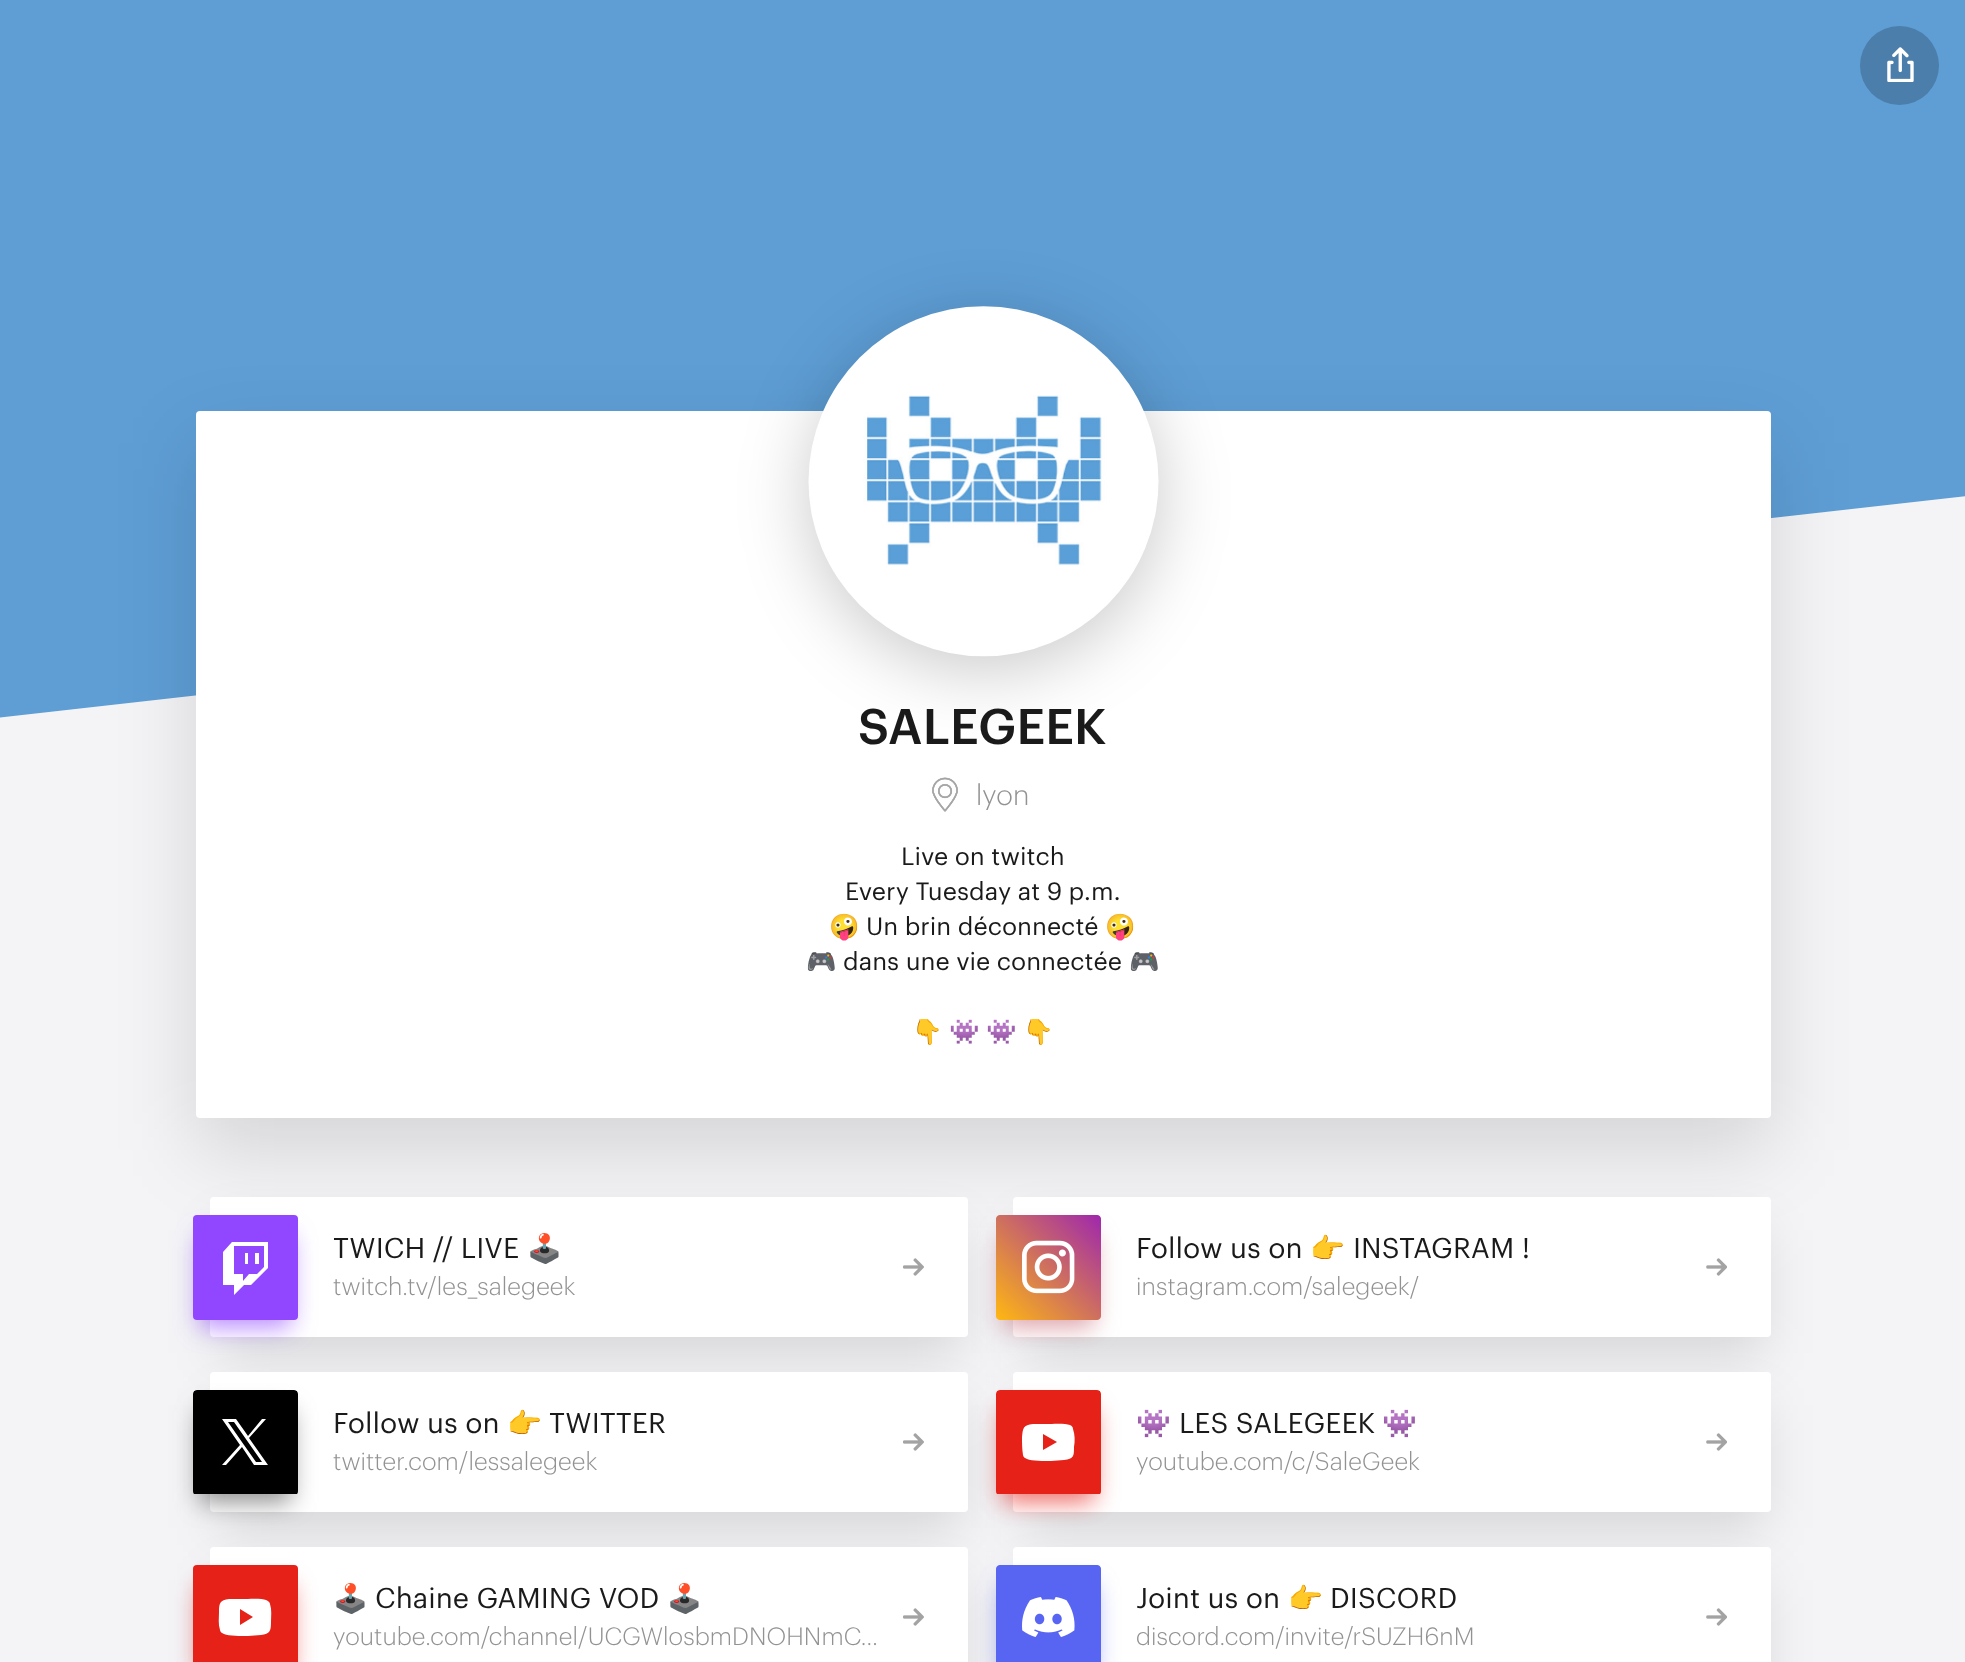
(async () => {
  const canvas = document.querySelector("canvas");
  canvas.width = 1965;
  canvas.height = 1662;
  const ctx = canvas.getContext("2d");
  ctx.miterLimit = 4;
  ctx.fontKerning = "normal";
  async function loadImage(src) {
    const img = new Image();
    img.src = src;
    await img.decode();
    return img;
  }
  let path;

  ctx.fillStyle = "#f4f4f7";
  ctx.fillRect(0, 0, 1965, 1662);
  ctx.fillStyle = "#5e9ed5";
  ctx.fillRect(0, 0, 1965, 718);
  ctx.fillStyle = "#4b7eaa";
  ctx.beginPath();
  ctx.arc(1899.5, 65.5, 39.5, 0, Math.PI * 2);
  ctx.fill();
  ctx.drawImage(await loadImage("img/1.png"), 1887, 47, 27, 35);
  ctx.save();
  ctx.beginPath();
  ctx.rect(0, 0, 1965, 805);
  ctx.clip();
  ctx.fillStyle = "#f4f4f7";
  path = new Path2D("M-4 718L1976 495L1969 1295L-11 1517Z");
  ctx.fill(path);
  ctx.restore();
  ctx.fillStyle = "rgba(0, 0, 0, 0.13)";
  ctx.filter = "blur(39.5px)";
  ctx.beginPath();
  ctx.roundRect(196, 443, 1575, 707, 4);
  ctx.fill();
  ctx.filter = "none";
  ctx.fillStyle = "#ffffff";
  ctx.beginPath();
  ctx.roundRect(196, 411, 1575, 707, 4);
  ctx.fill();
  ctx.fillStyle = "rgba(0, 0, 0, 0.21)";
  ctx.filter = "blur(35px)";
  ctx.beginPath();
  ctx.roundRect(809, 320, 350, 350, 175);
  ctx.fill();
  ctx.filter = "none";
  ctx.drawImage(await loadImage("img/2.png"), 808, 306, 351, 351);
  ctx.drawImage(await loadImage("img/3.png"), 932, 777, 26, 35);
  ctx.fillStyle = "rgba(0, 0, 0, 0.13)";
  ctx.filter = "blur(26px)";
  ctx.beginPath();
  ctx.rect(219, 1230, 740, 123);
  ctx.fill();
  ctx.filter = "none";
  ctx.fillStyle = "#ffffff";
  ctx.beginPath();
  ctx.roundRect(210, 1197, 758, 140, 4);
  ctx.fill();
  ctx.fillStyle = "rgba(145, 70, 255, 0.65)";
  ctx.filter = "blur(12px)";
  ctx.beginPath();
  ctx.rect(200, 1236, 91, 91);
  ctx.fill();
  ctx.filter = "none";
  ctx.fillStyle = "#9146ff";
  ctx.beginPath();
  ctx.roundRect(193, 1215, 105, 105, 4);
  ctx.fill();
  ctx.fillStyle = "#ffffff";
  path = new Path2D("M232 1242L223 1252V1285H234V1295L244 1285H251L268 1268V1242ZM264 1267L257 1274H249L243 1281V1274H234V1246H264Z");
  ctx.fill(path);
  ctx.fillRect(255, 1253, 4, 11);
  ctx.fillRect(245, 1253, 3, 11);
  ctx.drawImage(await loadImage("img/4.png"), 903, 1258, 21, 18);
  ctx.fillStyle = "rgba(0, 0, 0, 0.13)";
  ctx.filter = "blur(26px)";
  ctx.beginPath();
  ctx.rect(1022, 1230, 740, 123);
  ctx.fill();
  ctx.filter = "none";
  ctx.fillStyle = "#ffffff";
  ctx.beginPath();
  ctx.roundRect(1013, 1197, 758, 140, 4);
  ctx.fill();
  ctx.fillStyle = "rgba(202, 109, 120, 0.65)";
  ctx.filter = "blur(12px)";
  ctx.beginPath();
  ctx.rect(1003, 1236, 91, 91);
  ctx.fill();
  ctx.filter = "none";
  ctx.drawImage(await loadImage("img/5.png"), 996, 1215, 105, 105);
  ctx.drawImage(await loadImage("img/6.png"), 1706, 1258, 21, 18);
  ctx.fillStyle = "rgba(0, 0, 0, 0.13)";
  ctx.filter = "blur(26px)";
  ctx.beginPath();
  ctx.rect(219, 1405, 740, 123);
  ctx.fill();
  ctx.filter = "none";
  ctx.fillStyle = "#ffffff";
  ctx.beginPath();
  ctx.roundRect(210, 1372, 758, 140, 4);
  ctx.fill();
  ctx.fillStyle = "rgba(80, 80, 80, 0.65)";
  ctx.filter = "blur(12px)";
  ctx.beginPath();
  ctx.rect(200, 1411, 91, 91);
  ctx.fill();
  ctx.filter = "none";
  ctx.save();
  ctx.beginPath();
  ctx.roundRect(193, 1390, 105, 105, 4);
  ctx.clip();
  ctx.fillStyle = "#000000";
  ctx.beginPath();
  ctx.roundRect(193, 1390, 105, 104, [4, 4, 0, 0]);
  ctx.fill();
  ctx.restore();
  ctx.fillStyle = "#ffffff";
  path = new Path2D("M249 1438L266 1419H262L248 1436L236 1419H222L240 1445L222 1465H226L242 1447L254 1465H268ZM244 1445L228 1422H234L262 1462H256Z");
  ctx.fill(path);
  ctx.drawImage(await loadImage("img/4.png"), 903, 1433, 21, 18);
  ctx.fillStyle = "rgba(0, 0, 0, 0.13)";
  ctx.filter = "blur(26px)";
  ctx.beginPath();
  ctx.rect(1022, 1405, 740, 123);
  ctx.fill();
  ctx.filter = "none";
  ctx.fillStyle = "#ffffff";
  ctx.beginPath();
  ctx.roundRect(1013, 1372, 758, 140, 4);
  ctx.fill();
  ctx.fillStyle = "rgba(230, 33, 23, 0.65)";
  ctx.filter = "blur(12px)";
  ctx.beginPath();
  ctx.rect(1003, 1411, 91, 91);
  ctx.fill();
  ctx.filter = "none";
  ctx.save();
  ctx.beginPath();
  ctx.roundRect(996, 1390, 105, 105, 4);
  ctx.clip();
  ctx.fillStyle = "#e62117";
  ctx.beginPath();
  ctx.roundRect(996, 1390, 105, 104, [4, 4, 0, 0]);
  ctx.fill();
  ctx.restore();
  ctx.fillStyle = "#ffffff";
  path = new Path2D("M1073 1429C1073 1427 1072 1426 1070 1425C1065 1423 1052 1424 1046 1424H1033C1023 1425 1023 1428 1022 1437C1022 1443 1022 1449 1023 1455C1023 1457 1025 1458 1027 1459C1032 1461 1044 1461 1051 1461L1064 1460C1074 1459 1074 1456 1074 1447C1075 1441 1075 1435 1073 1429ZM1043 1450V1434L1057 1442Z");
  ctx.fill(path);
  ctx.drawImage(await loadImage("img/6.png"), 1706, 1433, 21, 18);
  ctx.fillStyle = "rgba(0, 0, 0, 0.13)";
  ctx.filter = "blur(26px)";
  ctx.beginPath();
  ctx.rect(219, 1580, 740, 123);
  ctx.fill();
  ctx.filter = "none";
  ctx.fillStyle = "#ffffff";
  ctx.beginPath();
  ctx.roundRect(210, 1547, 758, 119, 4);
  ctx.fill();
  ctx.fillStyle = "rgba(230, 33, 23, 0.65)";
  ctx.filter = "blur(12px)";
  ctx.beginPath();
  ctx.rect(200, 1586, 91, 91);
  ctx.fill();
  ctx.filter = "none";
  ctx.fillStyle = "#e62117";
  ctx.beginPath();
  ctx.roundRect(193, 1565, 105, 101, 4);
  ctx.fill();
  ctx.fillStyle = "#ffffff";
  path = new Path2D("M270 1604C270 1602 268 1601 266 1600C262 1598 248 1599 242 1599H229C220 1600 219 1603 219 1612C219 1618 218 1624 220 1630C220 1632 222 1633 224 1634C229 1636 241 1636 248 1636L261 1635C270 1634 271 1631 271 1622C271 1616 272 1610 270 1604ZM240 1625V1609L253 1617Z");
  ctx.fill(path);
  ctx.drawImage(await loadImage("img/4.png"), 903, 1608, 21, 18);
  ctx.fillStyle = "rgba(0, 0, 0, 0.13)";
  ctx.filter = "blur(26px)";
  ctx.beginPath();
  ctx.rect(1022, 1580, 740, 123);
  ctx.fill();
  ctx.filter = "none";
  ctx.fillStyle = "#ffffff";
  ctx.beginPath();
  ctx.roundRect(1013, 1547, 758, 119, 4);
  ctx.fill();
  ctx.fillStyle = "rgba(88, 101, 242, 0.65)";
  ctx.filter = "blur(12px)";
  ctx.beginPath();
  ctx.rect(1003, 1586, 91, 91);
  ctx.fill();
  ctx.filter = "none";
  ctx.drawImage(await loadImage("img/7.png"), 996, 1565, 105, 97);
  ctx.drawImage(await loadImage("img/6.png"), 1706, 1608, 21, 18);
  ctx.font = "500 49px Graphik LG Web";
  ctx.fillStyle = "#1a1a1a";
  ctx.fillText("SALEGEEK", 858, 744);
  ctx.font = "300 28px Graphik LG Web";
  ctx.fillStyle = "#929292";
  ctx.fillText("lyon", 976, 805);
  ctx.font = "24.5px Graphik LG Web";
  ctx.fillStyle = "#1a1a1a";
  ctx.fillText("Live on twitch", 901, 865);
  ctx.fillText("Every Tuesday at 9 p.m.", 845, 900);
  ctx.font = "24.5px Noto Color Emoji";
  ctx.fillText("🤪", 829, 935);
  ctx.font = "24.5px Graphik LG Web";
  ctx.fillText("Un brin déconnecté", 866, 935);
  ctx.font = "24.5px Noto Color Emoji";
  ctx.fillText("🤪", 1105, 935);
  ctx.fillText("🎮", 806, 970);
  ctx.font = "24.5px Graphik LG Web";
  ctx.fillText("dans une vie connectée", 843, 970);
  ctx.font = "24.5px Noto Color Emoji";
  for (const [text, x, y] of [
    ["🎮", 1129, 970],
    ["👇", 912, 1040],
    ["👾", 949, 1040],
    ["👾", 986, 1040],
    ["👇", 1023, 1040],
  ]) {
    ctx.fillText(text, x, y);
  }
  ctx.font = "28px Graphik LG Web";
  ctx.fillText("TWICH // LIVE", 333, 1258);
  ctx.font = "28px Noto Color Emoji";
  ctx.fillText("🕹️", 527, 1258);
  ctx.font = "300 24.5px Graphik LG Web";
  ctx.fillStyle = "#929292";
  ctx.fillText("twitch.tv/les_salegeek", 333, 1295);
  ctx.font = "28px Graphik LG Web";
  ctx.fillStyle = "#1a1a1a";
  ctx.fillText("Follow us on", 1136, 1258);
  ctx.font = "28px Noto Color Emoji";
  ctx.fillText("👉", 1310, 1258);
  ctx.font = "28px Graphik LG Web";
  ctx.fillText("INSTAGRAM !", 1353, 1258);
  ctx.font = "300 24.5px Graphik LG Web";
  ctx.fillStyle = "#929292";
  ctx.fillText("instagram.com/salegeek/", 1136, 1295);
  ctx.font = "28px Graphik LG Web";
  ctx.fillStyle = "#1a1a1a";
  ctx.fillText("Follow us on", 333, 1433);
  ctx.font = "28px Noto Color Emoji";
  ctx.fillText("👉", 507, 1433);
  ctx.font = "28px Graphik LG Web";
  ctx.fillText("TWITTER", 549, 1433);
  ctx.font = "300 24.5px Graphik LG Web";
  ctx.fillStyle = "#929292";
  ctx.fillText("twitter.com/lessalegeek", 333, 1470);
  ctx.font = "28px Noto Color Emoji";
  ctx.fillStyle = "#1a1a1a";
  ctx.fillText("👾", 1136, 1433);
  ctx.font = "28px Graphik LG Web";
  ctx.fillText("LES SALEGEEK", 1179, 1433);
  ctx.font = "28px Noto Color Emoji";
  ctx.fillText("👾", 1382, 1433);
  ctx.font = "300 24.5px Graphik LG Web";
  ctx.fillStyle = "#929292";
  ctx.fillText("youtube.com/c/SaleGeek", 1136, 1470);
  ctx.font = "28px Noto Color Emoji";
  ctx.fillStyle = "#1a1a1a";
  ctx.fillText("🕹️", 333, 1608);
  ctx.font = "28px Graphik LG Web";
  ctx.fillText("Chaine GAMING VOD", 375, 1608);
  ctx.font = "28px Noto Color Emoji";
  ctx.fillText("🕹️", 667, 1608);
  ctx.font = "300 24.5px Graphik LG Web";
  ctx.fillStyle = "#929292";
  ctx.fillText("youtube.com/channel/UCGWlosbmDNOHNmC…", 333, 1645);
  ctx.font = "28px Graphik LG Web";
  ctx.fillStyle = "#1a1a1a";
  ctx.fillText("Joint us on", 1136, 1608);
  ctx.font = "28px Noto Color Emoji";
  ctx.fillText("👉", 1288, 1608);
  ctx.font = "28px Graphik LG Web";
  ctx.fillText("DISCORD", 1330, 1608);
  ctx.font = "300 24.5px Graphik LG Web";
  ctx.fillStyle = "#929292";
  ctx.fillText("discord.com/invite/rSUZH6nM", 1136, 1645);
})();
